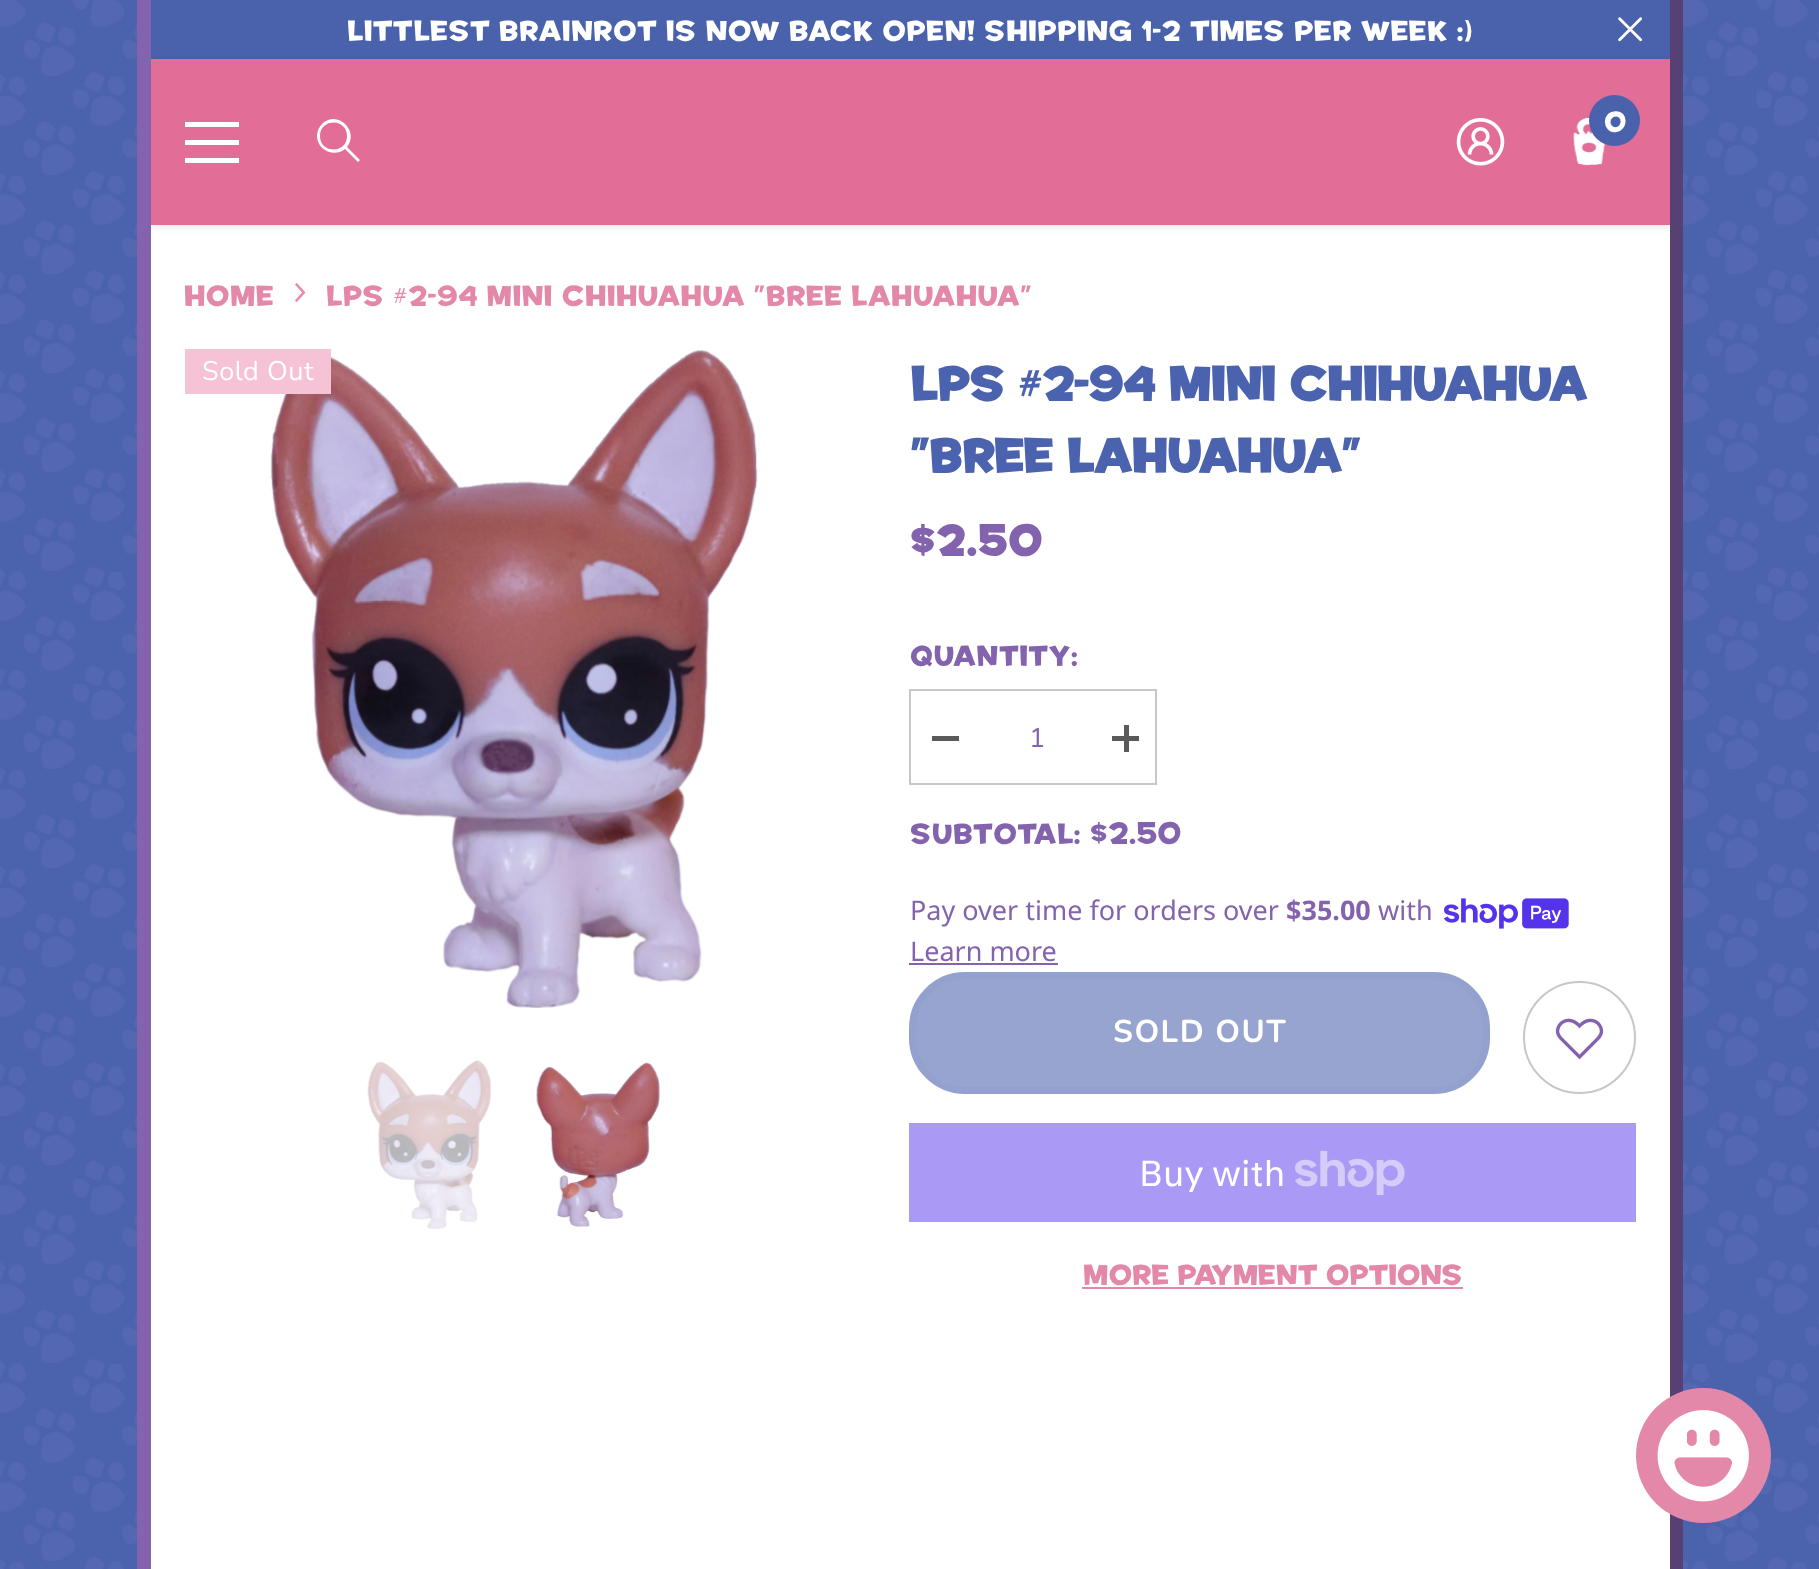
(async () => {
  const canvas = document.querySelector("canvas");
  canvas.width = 1819;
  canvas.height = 1569;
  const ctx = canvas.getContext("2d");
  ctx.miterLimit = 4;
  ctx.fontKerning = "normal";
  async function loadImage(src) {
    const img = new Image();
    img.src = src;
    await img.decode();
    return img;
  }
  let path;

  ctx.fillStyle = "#ffffff";
  ctx.fillRect(0, 0, 1819, 1569);
  ctx.drawImage(await loadImage("img/1.png"), 0, 0, 1819, 1569);
  for (const [x, y, w, h, color] of [
    [151, 225, 1519, 1344, "#ffffff"],
    [1670, 0, 13, 1569, "#574174"],
    [137, 0, 14, 1569, "#8362ae"],
    [151, 0, 1519, 59, "#4a61ac"],
  ]) {
    ctx.fillStyle = color;
    ctx.fillRect(x, y, w, h);
  }
  ctx.drawImage(await loadImage("img/2.png"), 1618, 17, 25, 25);
  ctx.save();
  ctx.beginPath();
  ctx.rect(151, 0, 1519, 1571);
  ctx.clip();
  ctx.fillStyle = "rgba(0, 0, 0, 0.1)";
  ctx.filter = "blur(3.5px)";
  ctx.beginPath();
  ctx.rect(151, 61, 1519, 166);
  ctx.fill();
  ctx.filter = "none";
  ctx.restore();
  for (const [x, y, w, h, color] of [
    [151, 59, 1519, 166, "#e26e98"],
    [185, 140, 54, 5, "#ffffff"],
    [185, 122, 54, 5, "#ffffff"],
    [185, 158, 54, 5, "#ffffff"],
  ]) {
    ctx.fillStyle = color;
    ctx.fillRect(x, y, w, h);
  }
  path = new Path2D("M317 136C317 150 334 158 345 149L358 162L360 160L347 147C360 131 337 109 322 124C319 127 317 131 317 136ZM320 136C320 118 347 118 347 136C347 154 320 154 320 136Z");
  ctx.fill(path);
  ctx.drawImage(await loadImage("img/3.png"), 1456, 118, 49, 48);
  ctx.drawImage(await loadImage("img/4.png"), 1573, 117, 32, 49);
  ctx.fillStyle = "#4a61ac";
  ctx.beginPath();
  ctx.arc(1614.5, 120.5, 25.5, 0, Math.PI * 2);
  ctx.fill();
  ctx.drawImage(await loadImage("img/5.png"), 295, 283, 11, 19);
  ctx.drawImage(await loadImage("img/6.png"), 270, 350, 488, 658);
  ctx.fillStyle = "#f6c2d5";
  ctx.fillRect(185, 349, 146, 45);
  ctx.drawImage(await loadImage("img/7.png"), 367, 1060, 124, 169);
  ctx.drawImage(await loadImage("img/8.png"), 536, 1062, 124, 165);
  ctx.strokeStyle = "#c7c7c7";
  ctx.lineWidth = 2;
  ctx.strokeRect(910, 690, 246, 94);
  for (const [x, y, w, h, color] of [
    [932, 736, 27, 5, "#5a5a5a"],
    [1112, 736, 27, 5, "#5a5a5a"],
    [1124, 725, 5, 27, "#5a5a5a"],
  ]) {
    ctx.fillStyle = color;
    ctx.fillRect(x, y, w, h);
  }
  ctx.drawImage(await loadImage("img/9.png"), 1444, 898, 125, 31);
  ctx.fillStyle = "#8362ae";
  ctx.fillRect(909, 963, 149, 2);
  ctx.fillStyle = "#98a4d0";
  ctx.beginPath();
  ctx.roundRect(912.5, 975.5, 574, 115, 52.5);
  ctx.fill();
  ctx.strokeStyle = "#93a1ce";
  ctx.lineWidth = 7;
  ctx.stroke();
  ctx.beginPath();
  ctx.arc(1579.5, 1037.5, 55.5, 0, Math.PI * 2);
  ctx.strokeStyle = "#c7c7c7";
  ctx.lineWidth = 2;
  ctx.stroke();
  ctx.drawImage(await loadImage("img/10.png"), 1555, 1018, 49, 42);
  ctx.fillStyle = "#aa99f5";
  ctx.fillRect(909, 1123, 727, 99);
  ctx.drawImage(await loadImage("img/11.png"), 1295, 1150, 110, 45);
  ctx.fillStyle = "#e488a9";
  ctx.fillRect(1082, 1287, 381, 2);
  ctx.beginPath();
  ctx.arc(1703.5, 1455.5, 67.5, 0, Math.PI * 2);
  ctx.fill();
  ctx.drawImage(await loadImage("img/12.png"), 1657, 1410, 92, 92);
  ctx.letterSpacing = "0.55px";
  ctx.font = "27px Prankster";
  ctx.fillStyle = "#ffffff";
  ctx.fillText("Littlest Brainrot is now back open! Shipping 1-2 times per week :)", 347, 41);
  ctx.letterSpacing = "0px";
  ctx.fillText("0", 1604, 132);
  ctx.letterSpacing = "0.55px";
  ctx.fillStyle = "#e488a9";
  ctx.fillText("Home", 184, 306);
  ctx.fillText("LPS #2-94 Mini Chihuahua \"Bree Lahuahua\"", 326, 306);
  ctx.font = "27px Nunito";
  ctx.fillStyle = "#ffffff";
  ctx.fillText("Sold Out", 202, 380);
  ctx.letterSpacing = "0px";
  ctx.font = "bold 45px Prankster";
  ctx.fillStyle = "#4b62ae";
  ctx.fillText("LPS #2-94 Mini Chihuahua", 910, 401);
  ctx.fillText("\"Bree Lahuahua\"", 910, 473);
  ctx.letterSpacing = "1px";
  ctx.font = "bold 40.5px Prankster";
  ctx.fillStyle = "#8362ae";
  ctx.fillText("$2.50", 910, 556);
  ctx.letterSpacing = "0.55px";
  ctx.font = "27px Prankster";
  ctx.fillText("Quantity:", 910, 666);
  ctx.font = "27px Nunito";
  ctx.fillText("1", 1029, 747);
  ctx.font = "27px Prankster";
  ctx.fillText("Subtotal:", 910, 844);
  ctx.letterSpacing = "0px";
  ctx.font = "29px Prankster";
  ctx.fillText("$2.50", 1090, 844);
  ctx.font = "27px Noto Sans";
  ctx.fillText("Pay over time for orders over", 910, 920);
  ctx.font = "bold 27px Noto Sans";
  ctx.fillText("$35.00", 1286, 920);
  ctx.font = "27px Noto Sans";
  ctx.fillText("with", 1378, 920);
  ctx.fillText("Learn more", 910, 961);
  ctx.letterSpacing = "1.5px";
  ctx.font = "bold 31.5px Nunito";
  ctx.fillStyle = "#ffffff";
  ctx.fillText("SOLD OUT", 1113, 1042);
  ctx.letterSpacing = "0px";
  ctx.font = "36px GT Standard";
  ctx.fillText("Buy with", 1139, 1186);
  ctx.font = "27px Prankster";
  ctx.fillStyle = "#e488a9";
  ctx.fillText("More payment options", 1083, 1285);
})();
